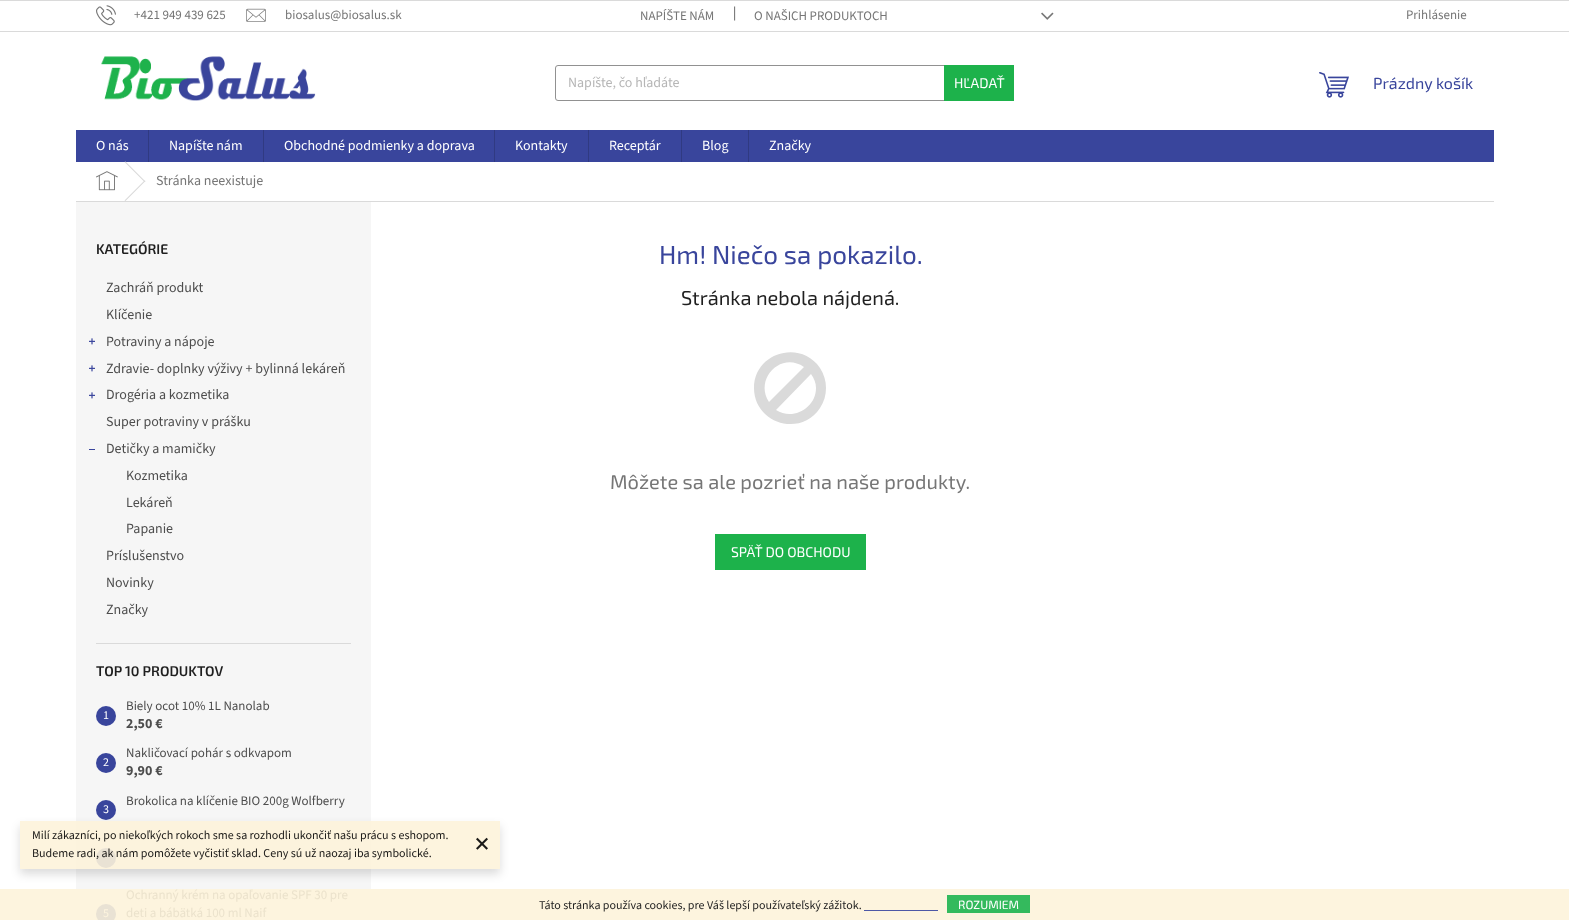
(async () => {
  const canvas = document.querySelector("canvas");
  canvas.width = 1584;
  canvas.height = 920;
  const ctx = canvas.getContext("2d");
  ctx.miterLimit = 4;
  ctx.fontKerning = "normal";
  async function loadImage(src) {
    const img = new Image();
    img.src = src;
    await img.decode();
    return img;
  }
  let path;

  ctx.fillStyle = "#ffffff";
  ctx.fillRect(0, 0, 1584, 920);
  for (const [x, y, w, h, color] of [
    [0, 889, 1569, 31, "#fdf4de"],
    [0, 0, 1569, 1, "#dadada"],
    [0, 31, 1569, 1, "#dadada"],
  ]) {
    ctx.fillStyle = color;
    ctx.fillRect(x, y, w, h);
  }
  ctx.drawImage(await loadImage("img/1.png"), 96, 5, 20, 21);
  ctx.drawImage(await loadImage("img/2.png"), 246, 8, 20, 14);
  ctx.drawImage(await loadImage("img/3.png"), 1041, 12, 13, 8);
  ctx.drawImage(await loadImage("img/4.png"), 101, 56, 215, 45);
  ctx.beginPath();
  ctx.roundRect(555.5, 65.5, 458, 35, 2.5);
  ctx.strokeStyle = "#919191";
  ctx.stroke();
  ctx.fillStyle = "#1db24b";
  ctx.fillRect(944, 65, 70, 36);
  ctx.drawImage(await loadImage("img/5.png"), 1319, 72, 30, 26);
  for (const [x, y, w, h, color] of [
    [76, 130, 1418, 32, "#39459c"],
    [148, 130, 1, 32, "#303a82"],
    [263, 130, 1, 32, "#303a82"],
    [494, 130, 1, 32, "#303a82"],
    [588, 130, 1, 32, "#303a82"],
    [681, 130, 1, 32, "#303a82"],
    [748, 130, 1, 32, "#303a82"],
    [76, 201, 1418, 1, "#dadada"],
  ]) {
    ctx.fillStyle = color;
    ctx.fillRect(x, y, w, h);
  }
  ctx.drawImage(await loadImage("img/6.png"), 96, 171, 22, 20);
  path = new Path2D("M124.5 162L125.5 161.5L145.5 181.5L144.5 182Z");
  ctx.fill(path);
  path = new Path2D("M144.5 180.5L145.5 181L125.5 201L124.5 200.5Z");
  ctx.fill(path);
  ctx.fillStyle = "#f6f6f6";
  ctx.fillRect(76, 202, 295, 687);
  ctx.fillStyle = "#dadada";
  ctx.fillRect(96, 643, 255, 1);
  ctx.drawImage(await loadImage("img/7.png"), 89, 338, 6, 7);
  ctx.drawImage(await loadImage("img/7.png"), 89, 365, 6, 7);
  ctx.drawImage(await loadImage("img/7.png"), 89, 392, 6, 7);
  ctx.fillStyle = "#39459c";
  ctx.fillRect(89, 449, 6, 1);
  ctx.beginPath();
  ctx.arc(106, 716, 10, 0, Math.PI * 2);
  ctx.fill();
  ctx.beginPath();
  ctx.arc(106, 763, 10, 0, Math.PI * 2);
  ctx.fill();
  ctx.beginPath();
  ctx.arc(106, 810, 10, 0, Math.PI * 2);
  ctx.fill();
  ctx.beginPath();
  ctx.arc(106, 858, 10, 0, Math.PI * 2);
  ctx.fill();
  ctx.fillStyle = "#e9e2d4";
  ctx.beginPath();
  ctx.arc(106, 914, 10, 0, Math.PI * 2);
  ctx.fill();
  ctx.fillStyle = "#dadada";
  path = new Path2D("M816 388C816 383 814 378 811 374L776 410C793 421 816 408 816 388ZM769 402L804 367C781 351 754 379 769 402ZM826 388C826 395 824 402 820 408C800 438 754 423 754 388C754 353 800 339 820 368C824 374 826 381 826 388Z");
  ctx.fill(path);
  ctx.fillStyle = "#1db24b";
  ctx.fillRect(715, 534, 151, 36);
  ctx.save();
  path = new Path2D("M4 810H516V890H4ZM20 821H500V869H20Z");
  ctx.clip(path, "evenodd");
  ctx.fillStyle = "rgba(0, 0, 0, 0.14)";
  ctx.filter = "blur(5px)";
  ctx.beginPath();
  ctx.rect(20, 826, 480, 48);
  ctx.fill();
  ctx.filter = "none";
  ctx.restore();
  ctx.fillStyle = "rgba(253, 243, 218, 0.9)";
  ctx.fillRect(20, 821, 480, 48);
  ctx.drawImage(await loadImage("img/8.png"), 476, 837, 12, 13);
  ctx.fillStyle = "#34ba5d";
  ctx.fillRect(947, 895, 83, 18);
  ctx.fillStyle = "#4d58a6";
  ctx.fillRect(864, 910, 74, 1);
  ctx.font = "13px 'Source Sans 3'";
  ctx.fillStyle = "#767676";
  for (const [text, x, y] of [
    ["+421 949 439 625", 134, 19],
    ["biosalus@biosalus.sk", 285, 19],
    ["NAPÍŠTE NÁM", 640, 20],
  ]) {
    ctx.fillText(text, x, y);
  }
  ctx.font = "14px 'Source Sans 3'";
  ctx.fillStyle = "#4d4d4d";
  ctx.fillText("|", 733, 17);
  ctx.font = "13px 'Source Sans 3'";
  ctx.fillStyle = "#767676";
  ctx.fillText("O NAŠICH PRODUKTOCH", 754, 20);
  ctx.fillText("Prihlásenie", 1406, 19);
  ctx.font = "14px 'Source Sans 3'";
  ctx.fillStyle = "#b6b6b6";
  ctx.fillText("Napíšte, čo hľadáte", 568, 87);
  ctx.font = "14px 'Exo 2'";
  ctx.fillStyle = "#ffffff";
  ctx.fillText("HĽADAŤ", 954, 88);
  ctx.font = "16px 'Exo 2'";
  ctx.fillStyle = "#39459c";
  ctx.fillText("Prázdny košík", 1373, 89);
  ctx.font = "14px 'Source Sans 3'";
  ctx.fillStyle = "#ffffff";
  for (const [text, x, y] of [
    ["O nás", 96, 150],
    ["Napíšte nám", 169, 150],
    ["Obchodné podmienky a doprava", 284, 150],
    ["Kontakty", 515, 150],
    ["Receptár", 609, 150],
    ["Blog", 702, 150],
    ["Značky", 769, 150],
  ]) {
    ctx.fillText(text, x, y);
  }
  ctx.fillStyle = "#767676";
  ctx.fillText("Stránka neexistuje", 156, 185);
  ctx.font = "600 14px 'Exo 2'";
  ctx.fillStyle = "#1f1f1f";
  ctx.fillText("KATEGÓRIE", 96, 254);
  ctx.font = "14px 'Source Sans 3'";
  ctx.fillStyle = "#4d4d4d";
  for (const [text, x, y] of [
    ["Zachráň produkt", 106, 292],
    ["Klíčenie", 106, 319],
    ["Potraviny a nápoje", 106, 346],
    ["Zdravie- doplnky výživy + bylinná lekáreň", 106, 373],
    ["Drogéria a kozmetika", 106, 399],
    ["Super potraviny v prášku", 106, 426],
    ["Detičky a mamičky", 106, 453],
    ["Kozmetika", 126, 480],
    ["Lekáreň", 126, 507],
    ["Papanie", 126, 533],
    ["Príslušenstvo", 106, 560],
    ["Novinky", 106, 587],
    ["Značky", 106, 614],
  ]) {
    ctx.fillText(text, x, y);
  }
  ctx.font = "600 14px 'Exo 2'";
  ctx.fillStyle = "#1f1f1f";
  ctx.fillText("TOP 10 PRODUKTOV", 96, 676);
  ctx.font = "12px 'Source Sans 3'";
  ctx.fillStyle = "#ffffff";
  ctx.fillText("1", 103, 719);
  ctx.font = "13px 'Source Sans 3'";
  ctx.fillStyle = "#4d4d4d";
  ctx.fillText("Biely ocot 10% 1L Nanolab", 126, 710);
  ctx.font = "bold 14px 'Source Sans 3'";
  ctx.fillText("2,50 €", 126, 728);
  ctx.font = "12px 'Source Sans 3'";
  ctx.fillStyle = "#ffffff";
  ctx.fillText("2", 103, 766);
  ctx.font = "13px 'Source Sans 3'";
  ctx.fillStyle = "#4d4d4d";
  ctx.fillText("Nakličovací pohár s odkvapom", 126, 757);
  ctx.font = "bold 14px 'Source Sans 3'";
  ctx.fillText("9,90 €", 126, 775);
  ctx.font = "13px 'Source Sans 3'";
  ctx.fillText("Brokolica na klíčenie BIO 200g Wolfberry", 126, 805);
  ctx.font = "12px 'Source Sans 3'";
  ctx.fillStyle = "#ffffff";
  ctx.fillText("3", 103, 813);
  ctx.fillStyle = "#fdf4de";
  ctx.fillText("5", 103, 917);
  ctx.font = "13px 'Source Sans 3'";
  ctx.fillStyle = "#ebe2cc";
  ctx.fillText("Ochranný krém na opaľovanie SPF 30 pre", 126, 899);
  ctx.fillText("deti a bábätká 100 ml Naif", 126, 917);
  ctx.font = "26px 'Exo 2'";
  ctx.fillStyle = "#39459c";
  ctx.fillText("Hm! Niečo sa pokazilo.", 659, 264);
  ctx.font = "20px 'Exo 2'";
  ctx.fillStyle = "#1f1f1f";
  ctx.fillText("Stránka nebola nájdená.", 681, 305);
  ctx.fillStyle = "#767676";
  ctx.fillText("Môžete sa ale pozrieť na naše produkty.", 610, 489);
  ctx.font = "14px 'Exo 2'";
  ctx.fillStyle = "#ffffff";
  ctx.fillText("SPÄŤ DO OBCHODU", 731, 557);
  ctx.font = "12px 'Source Sans 3'";
  ctx.fillStyle = "#191816";
  ctx.fillText("Milí zákazníci, po niekoľkých rokoch sme sa rozhodli ukončiť našu prácu s eshopom.", 32, 839);
  ctx.fillText("Budeme radi, ak nám pomôžete vyčistiť sklad. Ceny sú už naozaj iba symbolické.", 32, 857);
  ctx.fillStyle = "#1f1f1f";
  ctx.fillText("Táto stránka používa cookies, pre Váš lepší používateľský zážitok.", 539, 909);
  ctx.font = "12px 'Exo 2'";
  ctx.fillStyle = "#ffffff";
  ctx.fillText("ROZUMIEM", 958, 909);
})();
